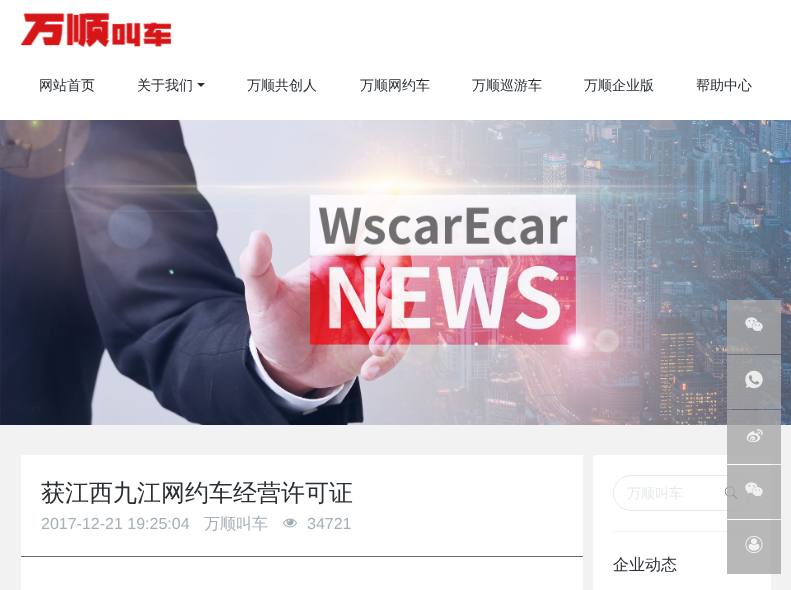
(async () => {
  const canvas = document.querySelector("canvas");
  canvas.width = 791;
  canvas.height = 590;
  const ctx = canvas.getContext("2d");
  ctx.miterLimit = 4;
  ctx.fontKerning = "normal";
  async function loadImage(src) {
    const img = new Image();
    img.src = src;
    await img.decode();
    return img;
  }
  let path;

  ctx.fillStyle = "#ffffff";
  ctx.fillRect(0, 0, 791, 590);
  ctx.drawImage(await loadImage("img/1.png"), 20, 13, 151, 34);
  ctx.fillStyle = "#292e33";
  path = new Path2D("M197 83H205L201 87Z");
  ctx.fill(path);
  ctx.drawImage(await loadImage("img/2.png"), 0, 120, 791, 305);
  for (const [x, y, w, h, color] of [
    [0, 425, 791, 165, "#f2f2f2"],
    [771, 520, 10, 54, "#b5b5b5"],
    [21, 455, 562, 135, "#ffffff"],
    [21, 556, 562, 1, "#666b6b"],
  ]) {
    ctx.fillStyle = color;
    ctx.fillRect(x, y, w, h);
  }
  ctx.drawImage(await loadImage("img/3.png"), 283, 518, 14, 10);
  ctx.fillStyle = "#ffffff";
  ctx.beginPath();
  ctx.roundRect(593, 455, 178, 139, 4);
  ctx.fill();
  ctx.fillStyle = "#b8b8b8";
  ctx.fillRect(727, 520, 44, 54);
  ctx.beginPath();
  ctx.roundRect(613.5, 475.5, 137, 35, 17.5);
  ctx.strokeStyle = "#e4eaec";
  ctx.stroke();
  ctx.drawImage(await loadImage("img/4.png"), 724, 486, 14, 13);
  for (const [x, y, w, h, color] of [
    [613, 531, 114, 1, "#f0f2f5"],
    [727, 531, 24, 1, "#b5b5b6"],
    [727, 300, 54, 54, "rgba(166, 166, 166, 0.8)"],
  ]) {
    ctx.fillStyle = color;
    ctx.fillRect(x, y, w, h);
  }
  ctx.drawImage(await loadImage("img/5.png"), 745, 317, 18, 15);
  ctx.fillRect(727, 355, 54, 54);
  ctx.drawImage(await loadImage("img/6.png"), 745, 370, 18, 19);
  ctx.fillRect(727, 410, 54, 54);
  ctx.drawImage(await loadImage("img/7.png"), 746, 429, 17, 14);
  ctx.fillRect(727, 465, 54, 54);
  ctx.drawImage(await loadImage("img/8.png"), 745, 482, 18, 15);
  ctx.drawImage(await loadImage("img/9.png"), 745, 535, 18, 19);
  ctx.font = "500 14px WenQuanYi Zen Hei";
  ctx.fillStyle = "#292e33";
  for (const [text, x, y] of [
    ["网站首页", 39, 90],
    ["关于我们", 137, 90],
    ["万顺共创人", 247, 90],
    ["万顺网约车", 360, 90],
    ["万顺巡游车", 472, 90],
    ["万顺企业版", 584, 90],
    ["帮助中心", 696, 90],
  ]) {
    ctx.fillText(text, x, y);
  }
  ctx.font = "500 24px WenQuanYi Zen Hei";
  ctx.fillText("获江西九江网约车经营许可证", 41, 501);
  ctx.font = "16px Liberation Sans";
  ctx.fillStyle = "#a3afb7";
  ctx.fillText("2017-12-21 19:25:04", 41, 529);
  ctx.font = "500 16px WenQuanYi Zen Hei";
  ctx.fillText("万顺叫车", 204, 529);
  ctx.font = "16px Liberation Sans";
  ctx.fillText("34721", 307, 529);
  ctx.font = "500 14px WenQuanYi Zen Hei";
  ctx.fillStyle = "#e4eaec";
  ctx.fillText("万顺叫车", 627, 498);
  ctx.font = "500 16px WenQuanYi Zen Hei";
  ctx.fillStyle = "#292e33";
  ctx.fillText("企业动态", 613, 570);
})();
